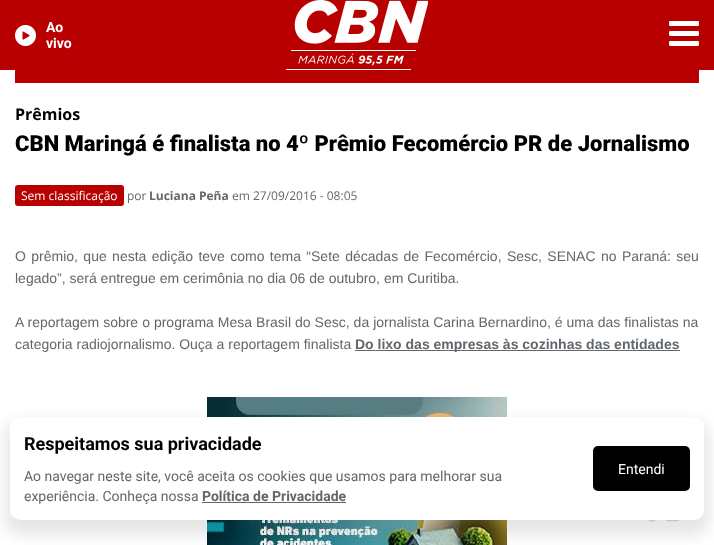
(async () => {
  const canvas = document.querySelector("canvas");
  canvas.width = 714;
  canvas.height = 545;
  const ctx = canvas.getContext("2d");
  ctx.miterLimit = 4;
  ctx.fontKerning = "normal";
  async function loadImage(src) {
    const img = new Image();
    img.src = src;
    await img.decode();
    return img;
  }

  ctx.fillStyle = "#ffffff";
  ctx.fillRect(0, 0, 714, 545);
  ctx.fillStyle = "#b90000";
  ctx.fillRect(0, 0, 714, 70);
  ctx.drawImage(await loadImage("img/1.png"), 15, 25, 21, 21);
  ctx.drawImage(await loadImage("img/2.png"), 286, 0, 142, 70);
  ctx.drawImage(await loadImage("img/3.png"), 669, 21, 30, 25);
  ctx.fillRect(15, 70, 684, 13);
  ctx.beginPath();
  ctx.roundRect(15, 185, 109, 21, 3);
  ctx.fill();
  ctx.fillStyle = "#62676c";
  ctx.fillRect(355, 350, 325, 1);
  ctx.drawImage(await loadImage("img/4.png"), 207, 397, 300, 148);
  ctx.drawImage(await loadImage("img/5.png"), 649, 520, 31, 2);
  ctx.fillStyle = "rgba(0, 0, 0, 0.1)";
  ctx.filter = "blur(7.5px)";
  ctx.beginPath();
  ctx.roundRect(5, 422, 704, 113, 15);
  ctx.fill();
  ctx.filter = "none";
  ctx.fillStyle = "#ffffff";
  ctx.beginPath();
  ctx.roundRect(10, 417, 694, 103, 10);
  ctx.fill();
  ctx.fillStyle = "#62676c";
  ctx.fillRect(202, 502, 144, 1);
  ctx.fillStyle = "#000000";
  ctx.beginPath();
  ctx.roundRect(593, 446, 97, 45, 5);
  ctx.fill();
  ctx.font = "bold 14px Roboto";
  ctx.fillStyle = "#ffffff";
  ctx.fillText("Ao", 46, 32);
  ctx.fillText("vivo", 46, 48);
  ctx.font = "bold 16px Open Sans";
  ctx.fillStyle = "#000000";
  ctx.fillText("Prêmios", 15, 120);
  ctx.font = "900 22px Roboto";
  ctx.fillText("CBN Maringá é finalista no 4º Prêmio Fecomércio PR de Jornalismo", 15, 151);
  ctx.font = "12px Open Sans";
  ctx.fillStyle = "#ffffff";
  ctx.fillText("Sem classificação", 21, 200);
  ctx.fillStyle = "#62676c";
  ctx.fillText("por", 127, 200);
  ctx.font = "bold 12px Open Sans";
  ctx.fillText("Luciana Peña", 149, 200);
  ctx.font = "12px Open Sans";
  ctx.fillText("em 27/09/2016 - 08:05", 232, 200);
  ctx.wordSpacing = "1.5px";
  ctx.font = "14px Liberation Sans";
  ctx.fillText("O prêmio, que nesta edição teve como tema “Sete décadas de Fecomércio, Sesc, SENAC no Paraná: seu", 15, 261);
  ctx.wordSpacing = "0px";
  ctx.fillText("legado”, será entregue em cerimônia no dia 06 de outubro, em Curitiba.", 15, 283);
  ctx.wordSpacing = "0.1px";
  ctx.fillText("A reportagem sobre o programa Mesa Brasil do Sesc, da jornalista Carina Bernardino, é uma das finalistas na", 15, 327);
  ctx.wordSpacing = "0px";
  ctx.fillText("categoria radiojornalismo. Ouça a reportagem finalista", 15, 349);
  ctx.font = "bold 14px Liberation Sans";
  ctx.fillText("Do lixo das empresas às cozinhas das entidades", 355, 349);
  ctx.font = "bold 18px Roboto";
  ctx.fillStyle = "#000000";
  ctx.fillText("Respeitamos sua privacidade", 24, 450);
  ctx.font = "14px Roboto";
  ctx.fillStyle = "#62676c";
  ctx.fillText("Ao navegar neste site, você aceita os cookies que usamos para melhorar sua", 24, 481);
  ctx.fillText("experiência. Conheça nossa", 24, 501);
  ctx.font = "bold 14px Roboto";
  ctx.fillText("Política de Privacidade", 202, 501);
  ctx.font = "14px Roboto";
  ctx.fillStyle = "#ffffff";
  ctx.fillText("Entendi", 618, 474);
})();
